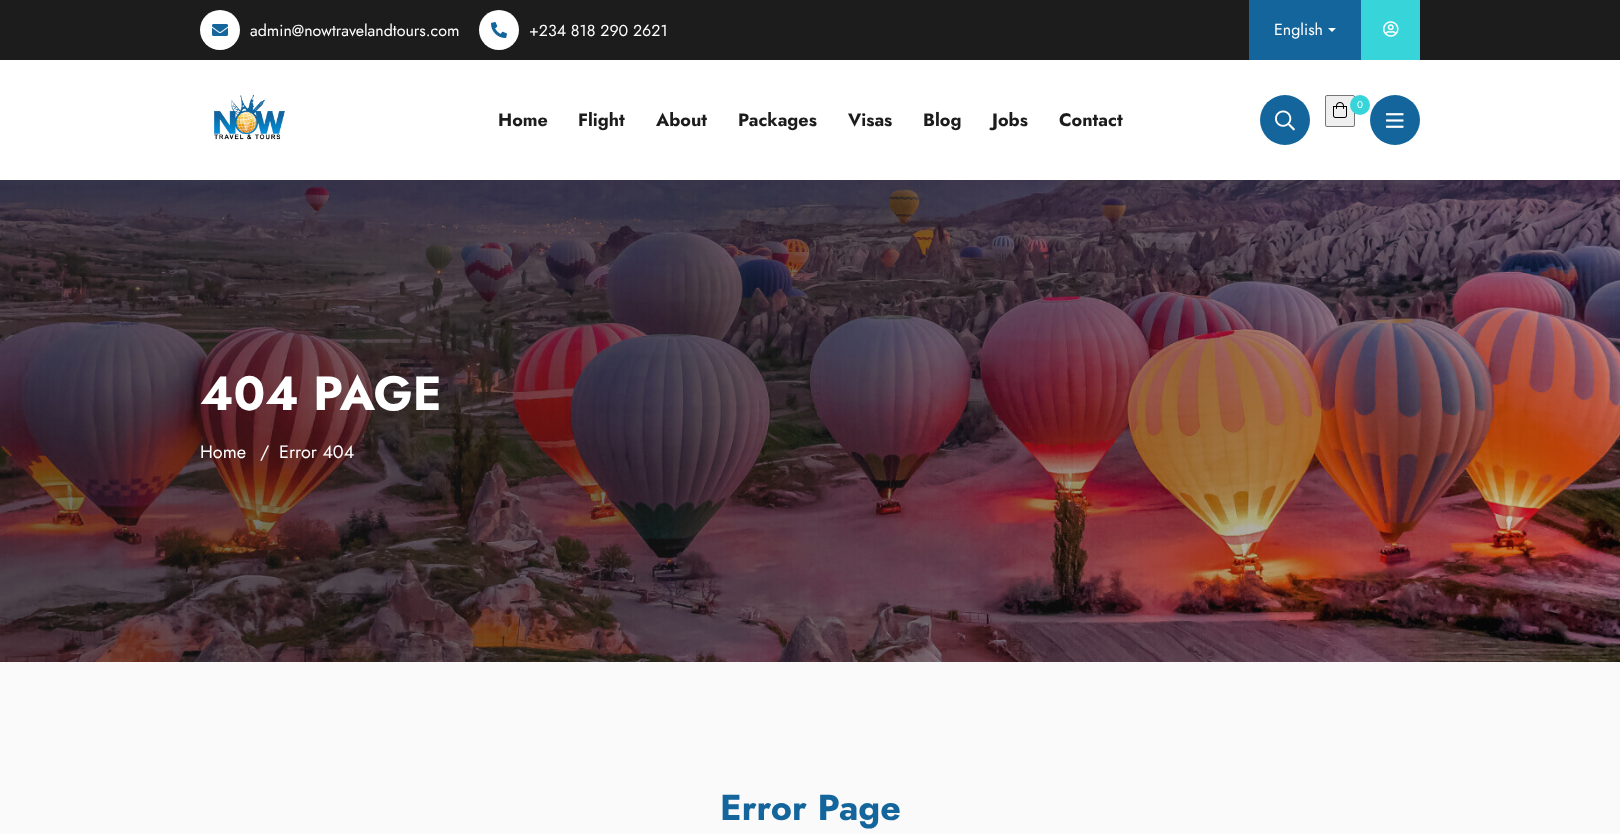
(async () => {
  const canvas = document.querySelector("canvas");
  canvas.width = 1620;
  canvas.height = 834;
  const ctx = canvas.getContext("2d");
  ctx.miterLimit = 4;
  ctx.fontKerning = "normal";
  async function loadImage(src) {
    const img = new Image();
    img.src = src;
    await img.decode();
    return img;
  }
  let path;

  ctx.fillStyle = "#ffffff";
  ctx.fillRect(0, 0, 1620, 834);
  ctx.fillStyle = "#1c1c1c";
  ctx.fillRect(0, 0, 1620, 60);
  ctx.fillStyle = "#ffffff";
  ctx.beginPath();
  ctx.arc(220, 30, 20, 0, Math.PI * 2);
  ctx.fill();
  ctx.drawImage(await loadImage("img/1.png"), 212, 24, 16, 12);
  ctx.beginPath();
  ctx.arc(499, 30, 20, 0, Math.PI * 2);
  ctx.fill();
  ctx.drawImage(await loadImage("img/2.png"), 491, 22, 16, 16);
  ctx.fillStyle = "#13659b";
  ctx.fillRect(1249, 0, 112, 60);
  ctx.fillStyle = "#ffffff";
  path = new Path2D("M1328 28H1336L1332 32Z");
  ctx.fill(path);
  ctx.fillStyle = "#37d4d9";
  ctx.fillRect(1361, 0, 59, 60);
  ctx.drawImage(await loadImage("img/3.png"), 1383, 21, 16, 16);
  ctx.drawImage(await loadImage("img/4.png"), 214, 94, 71, 46);
  ctx.fillStyle = "#13659b";
  ctx.beginPath();
  ctx.arc(1285, 120, 25, 0, Math.PI * 2);
  ctx.fill();
  ctx.drawImage(await loadImage("img/5.png"), 1275, 110, 20, 21);
  ctx.fillStyle = "#efefef";
  ctx.beginPath();
  ctx.roundRect(1325.5, 95.5, 29, 31, 1.5);
  ctx.fill();
  ctx.strokeStyle = "#767676";
  ctx.stroke();
  ctx.drawImage(await loadImage("img/6.png"), 1333, 102, 14, 16);
  ctx.fillStyle = "#37d4d9";
  ctx.beginPath();
  ctx.arc(1360, 105, 10, 0, Math.PI * 2);
  ctx.fill();
  ctx.fillStyle = "#13659b";
  ctx.beginPath();
  ctx.arc(1395, 120, 25, 0, Math.PI * 2);
  ctx.fill();
  ctx.drawImage(await loadImage("img/7.png"), 1386, 113, 18, 15);
  ctx.drawImage(await loadImage("img/8.png"), 0, 180, 1620, 482);
  ctx.fillStyle = "#fafafa";
  ctx.fillRect(0, 662, 1620, 172);
  ctx.font = "16px Jost";
  ctx.fillStyle = "#ffffff";
  for (const [text, x, y] of [
    ["admin@nowtravelandtours.com", 250, 36],
    ["+234 818 290 2621", 529, 36],
    ["English", 1274, 35],
  ]) {
    ctx.fillText(text, x, y);
  }
  ctx.font = "10px Jost";
  ctx.fillText("0", 1357, 108);
  ctx.font = "bold 18px Jost";
  ctx.fillStyle = "#1c1c1c";
  for (const [text, x, y] of [
    ["Home", 498, 126],
    ["Flight", 578, 126],
    ["About", 656, 126],
    ["Packages", 738, 126],
    ["Visas", 848, 126],
    ["Blog", 923, 126],
    ["Jobs", 992, 126],
    ["Contact", 1059, 126],
  ]) {
    ctx.fillText(text, x, y);
  }
  ctx.font = "bold 48px Jost";
  ctx.fillStyle = "#ffffff";
  ctx.fillText("404 PAGE", 200, 410);
  ctx.font = "18px Jost";
  for (const [text, x, y] of [
    ["Home", 200, 458],
    ["/", 260, 458],
    ["Error 404", 279, 458],
  ]) {
    ctx.fillText(text, x, y);
  }
  ctx.font = "bold 36px Jost";
  ctx.fillStyle = "#13659b";
  ctx.fillText("Error Page", 720, 820);
})();
